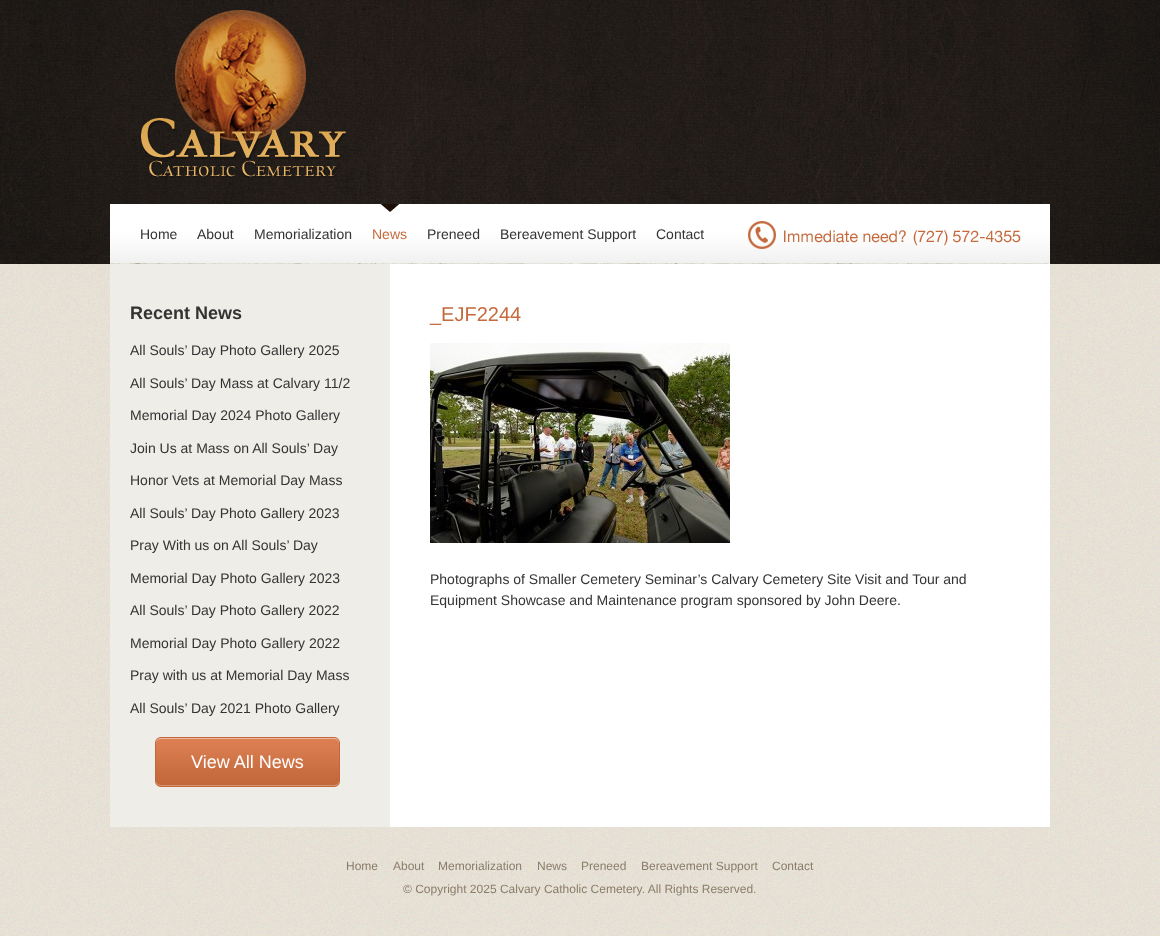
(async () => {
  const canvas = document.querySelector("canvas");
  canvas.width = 1160;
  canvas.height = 936;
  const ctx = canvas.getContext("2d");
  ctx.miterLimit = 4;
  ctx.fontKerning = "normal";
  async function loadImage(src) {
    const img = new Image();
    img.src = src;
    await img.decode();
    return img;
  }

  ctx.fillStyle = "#ffffff";
  ctx.fillRect(0, 0, 1160, 936);
  ctx.drawImage(await loadImage("img/1.png"), 0, 264, 1160, 672);
  ctx.drawImage(await loadImage("img/2.png"), 0, 0, 1160, 264);
  ctx.drawImage(await loadImage("img/3.png"), 141, 10, 206, 168);
  ctx.drawImage(await loadImage("img/4.png"), 110, 204, 940, 60);
  ctx.drawImage(await loadImage("img/5.png"), 380, 204, 20, 8);
  ctx.fillRect(390, 264, 660, 563);
  ctx.fillStyle = "#efede8";
  ctx.fillRect(110, 264, 280, 563);
  ctx.drawImage(await loadImage("img/6.png"), 155, 737, 185, 50);
  ctx.drawImage(await loadImage("img/7.png"), 430, 343, 300, 200);
  ctx.font = "14px Liberation Sans";
  ctx.fillStyle = "#333333";
  for (const [text, x, y] of [
    ["Home", 140, 239],
    ["About", 197, 239],
    ["Memorialization", 254, 239],
  ]) {
    ctx.fillText(text, x, y);
  }
  ctx.fillStyle = "#c56a3d";
  ctx.fillText("News", 372, 239);
  ctx.fillStyle = "#333333";
  for (const [text, x, y] of [
    ["Preneed", 427, 239],
    ["Bereavement Support", 500, 239],
    ["Contact", 656, 239],
  ]) {
    ctx.fillText(text, x, y);
  }
  ctx.font = "bold 18px Liberation Sans";
  ctx.fillText("Recent News", 130, 319);
  ctx.font = "14px Liberation Sans";
  for (const [text, x, y] of [
    ["All Souls’ Day Photo Gallery 2025", 130, 355],
    ["All Souls’ Day Mass at Calvary 11/2", 130, 388],
    ["Memorial Day 2024 Photo Gallery", 130, 420],
    ["Join Us at Mass on All Souls’ Day", 130, 453],
    ["Honor Vets at Memorial Day Mass", 130, 485],
    ["All Souls’ Day Photo Gallery 2023", 130, 518],
    ["Pray With us on All Souls’ Day", 130, 550],
    ["Memorial Day Photo Gallery 2023", 130, 583],
    ["All Souls’ Day Photo Gallery 2022", 130, 615],
    ["Memorial Day Photo Gallery 2022", 130, 648],
    ["Pray with us at Memorial Day Mass", 130, 680],
    ["All Souls’ Day 2021 Photo Gallery", 130, 713],
  ]) {
    ctx.fillText(text, x, y);
  }
  ctx.font = "18px Liberation Sans";
  ctx.fillStyle = "#ffffff";
  ctx.fillText("View All News", 191, 768);
  ctx.font = "20px Liberation Sans";
  ctx.fillStyle = "#c56a3d";
  ctx.fillText("_EJF2244", 430, 321);
  ctx.font = "14px Liberation Sans";
  ctx.fillStyle = "#333333";
  ctx.fillText("Photographs of Smaller Cemetery Seminar’s Calvary Cemetery Site Visit and Tour and", 430, 584);
  ctx.fillText("Equipment Showcase and Maintenance program sponsored by John Deere.", 430, 605);
  ctx.font = "12px Liberation Sans";
  ctx.fillStyle = "#8a7d6a";
  for (const [text, x, y] of [
    ["Home", 346, 870],
    ["About", 393, 870],
    ["Memorialization", 438, 870],
    ["News", 537, 870],
    ["Preneed", 581, 870],
    ["Bereavement Support", 641, 870],
    ["Contact", 772, 870],
    ["© Copyright 2025 Calvary Catholic Cemetery. All Rights Reserved.", 403, 893],
  ]) {
    ctx.fillText(text, x, y);
  }
})();
